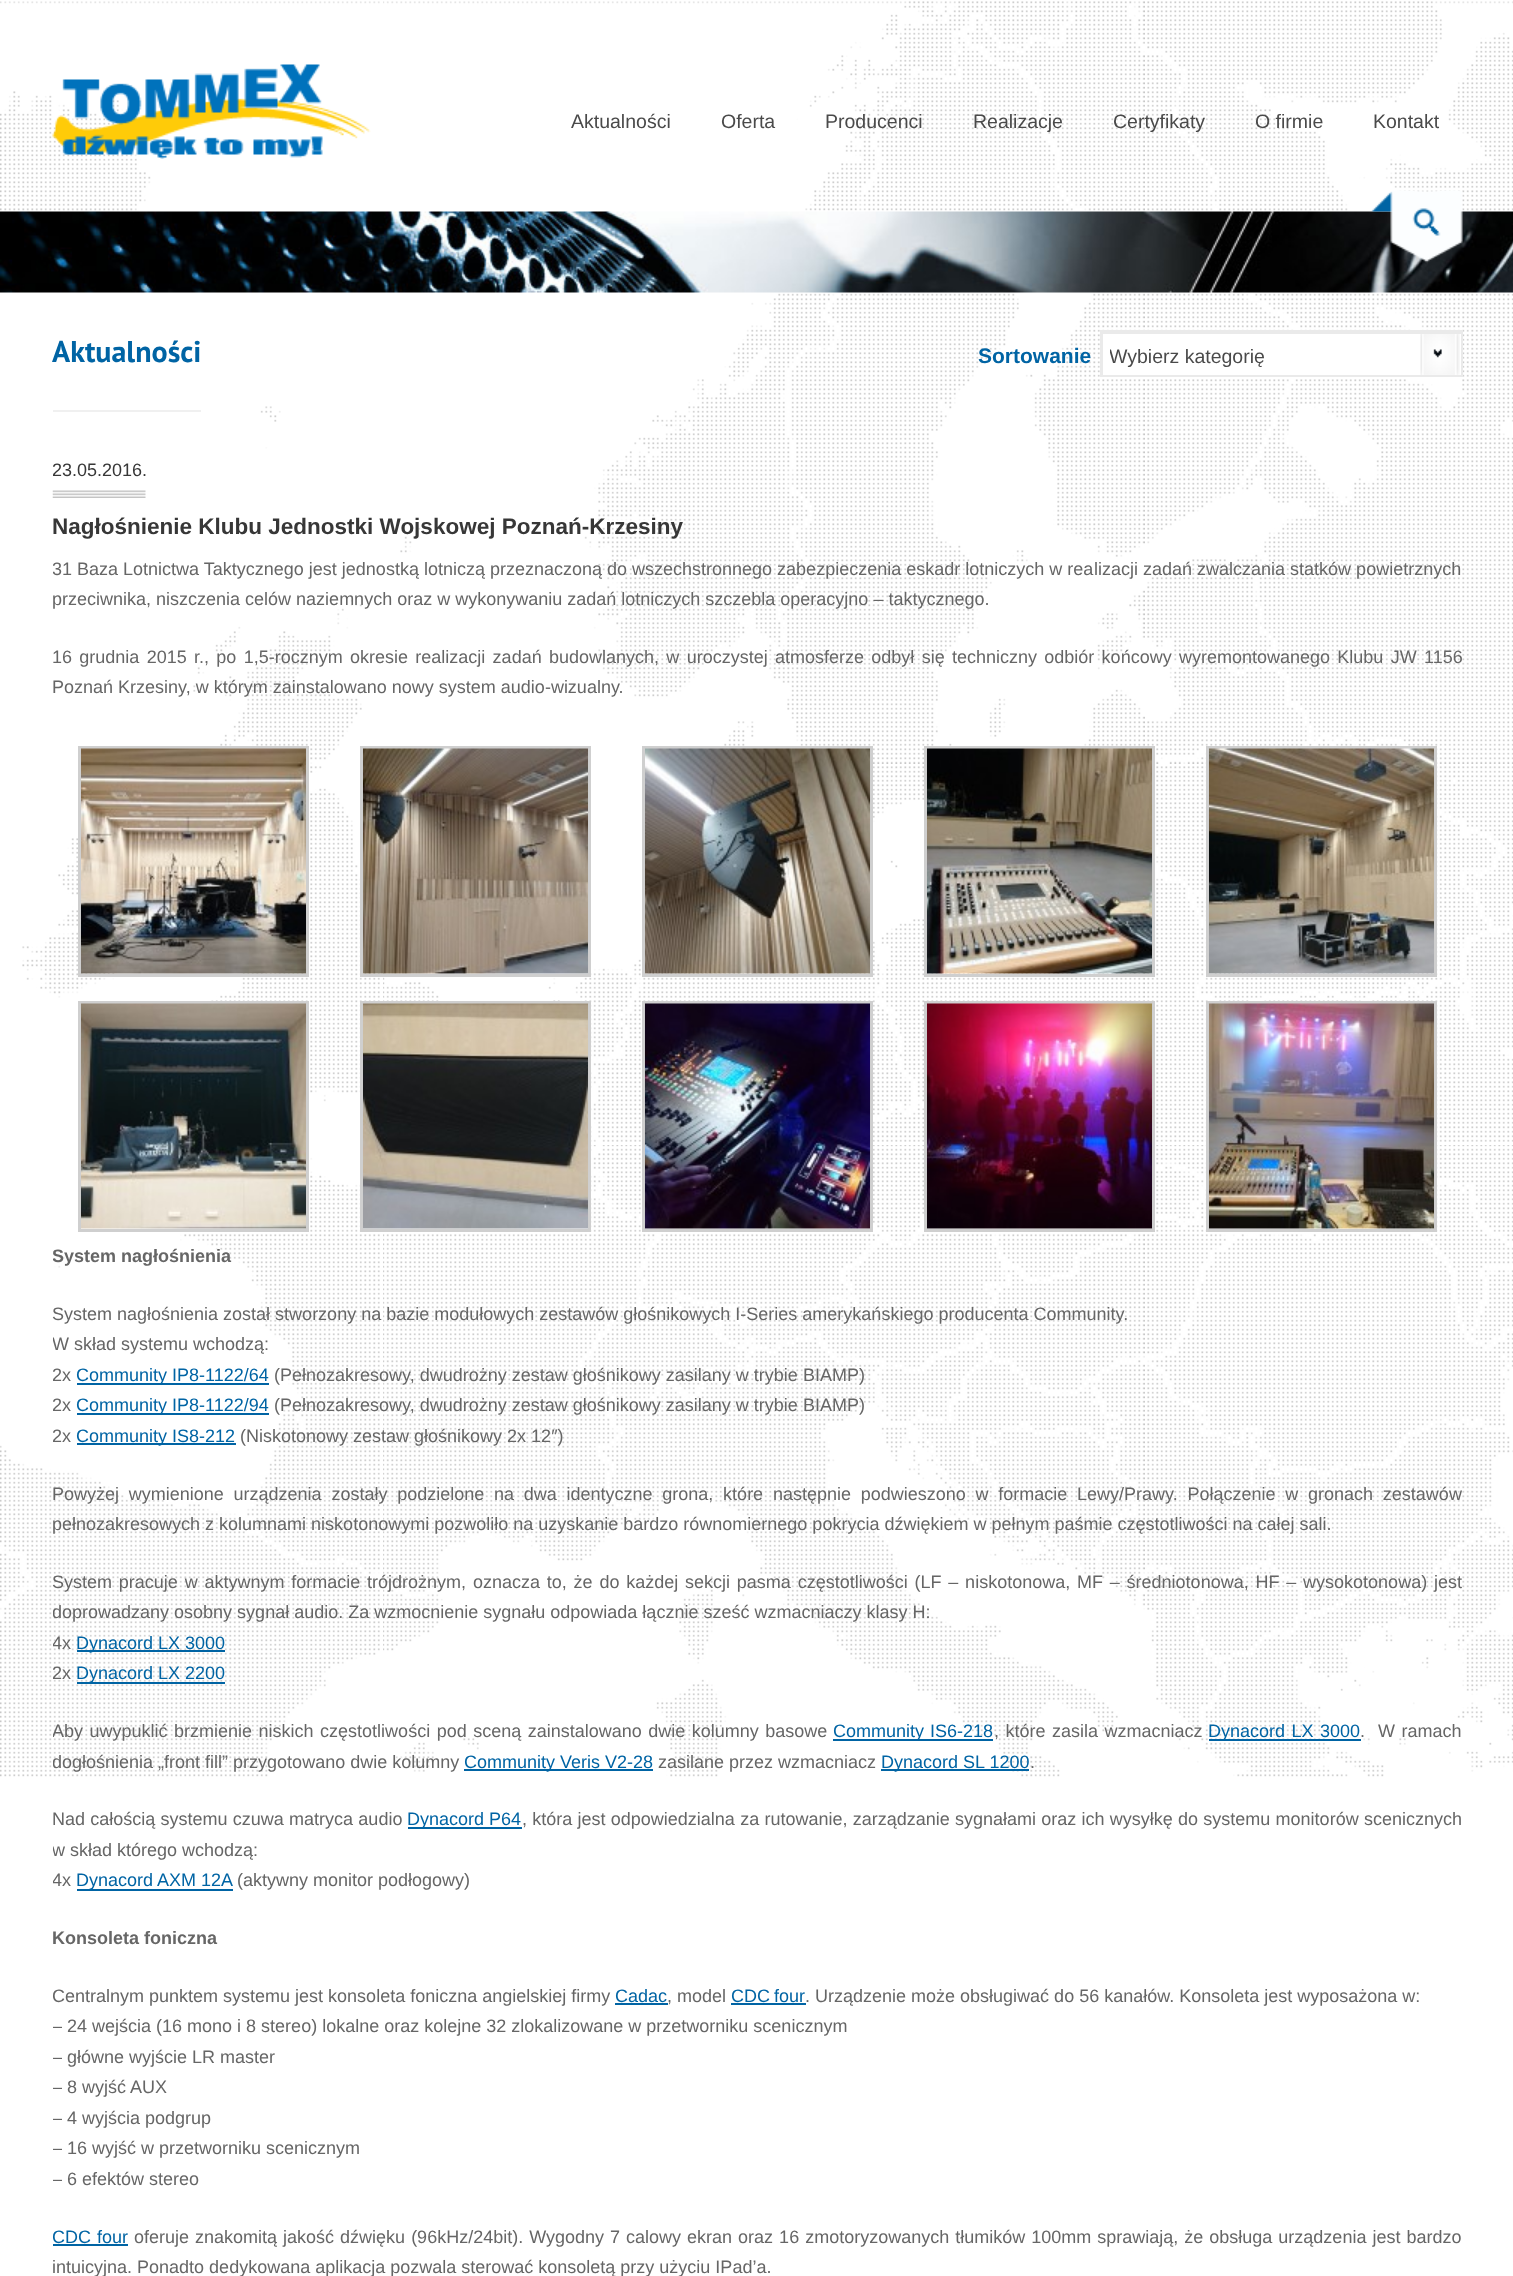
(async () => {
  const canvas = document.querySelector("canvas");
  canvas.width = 1513;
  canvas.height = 2276;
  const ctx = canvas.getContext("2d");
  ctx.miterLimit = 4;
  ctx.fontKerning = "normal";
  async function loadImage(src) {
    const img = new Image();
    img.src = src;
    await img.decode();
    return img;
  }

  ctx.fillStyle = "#ffffff";
  ctx.fillRect(0, 0, 1513, 2276);
  ctx.drawImage(await loadImage("img/1.png"), 0, 1, 1513, 1776);
  ctx.drawImage(await loadImage("img/2.png"), 52, 64, 319, 95);
  ctx.drawImage(await loadImage("img/3.png"), 0, 211, 1513, 82);
  ctx.drawImage(await loadImage("img/4.png"), 1371, 190, 92, 73);
  ctx.fillStyle = "#f0f0f0";
  ctx.fillRect(53, 410, 148, 2);
  ctx.fillStyle = "#ffffff";
  ctx.fillRect(1103, 334, 357, 41);
  ctx.drawImage(await loadImage("img/5.png"), 1420, 334, 40, 41);
  ctx.strokeStyle = "#eaeaea";
  ctx.lineWidth = 2;
  ctx.strokeRect(1101, 331, 361, 45);
  ctx.save();
  ctx.beginPath();
  ctx.rect(1101, 332, 360, 43);
  ctx.clip();
  ctx.strokeRect(1102, 333, 360, 47);
  ctx.restore();
  ctx.drawImage(await loadImage("img/6.png"), 52, 490, 94, 8);
  ctx.strokeStyle = "#cfcfcf";
  ctx.lineWidth = 3;
  ctx.strokeRect(79.5, 747.5, 228, 228);
  ctx.drawImage(await loadImage("img/7.png"), 81, 748, 225, 226);
  ctx.strokeRect(361.5, 747.5, 228, 228);
  ctx.drawImage(await loadImage("img/8.png"), 363, 748, 225, 226);
  ctx.strokeRect(643.5, 747.5, 228, 228);
  ctx.drawImage(await loadImage("img/9.png"), 645, 748, 225, 226);
  ctx.strokeRect(925.5, 747.5, 228, 228);
  ctx.drawImage(await loadImage("img/10.png"), 927, 748, 225, 226);
  ctx.strokeRect(1207.5, 747.5, 228, 228);
  ctx.drawImage(await loadImage("img/11.png"), 1209, 748, 225, 226);
  ctx.strokeRect(79.5, 1002.5, 228, 228);
  ctx.drawImage(await loadImage("img/12.png"), 81, 1003, 225, 226);
  ctx.strokeRect(361.5, 1002.5, 228, 228);
  ctx.drawImage(await loadImage("img/13.png"), 363, 1003, 225, 226);
  ctx.strokeRect(643.5, 1002.5, 228, 228);
  ctx.drawImage(await loadImage("img/14.png"), 645, 1003, 225, 226);
  ctx.strokeRect(925.5, 1002.5, 228, 228);
  ctx.drawImage(await loadImage("img/15.png"), 927, 1003, 225, 226);
  ctx.strokeRect(1207.5, 1002.5, 228, 228);
  ctx.drawImage(await loadImage("img/16.png"), 1209, 1003, 225, 226);
  for (const [x, y, w, h, color] of [
    [77, 1383, 192, 2, "#0064a4"],
    [77, 1413, 192, 2, "#0064a4"],
    [77, 1443, 159, 2, "#0064a4"],
    [77, 1650, 148, 2, "#0064a4"],
    [77, 1682, 148, 2, "#0064a4"],
    [833, 1739, 160, 2, "#0064a4"],
    [1209, 1739, 152, 2, "#0064a4"],
    [464, 1769, 189, 2, "#0064a4"],
    [881, 1769, 148, 2, "#0064a4"],
    [408, 1827, 114, 2, "#0064a4"],
    [77, 1889, 156, 2, "#0064a4"],
    [615, 2003, 53, 2, "#0064a4"],
    [731, 2003, 75, 2, "#0064a4"],
    [53, 2244, 75, 2, "#0064a4"],
  ]) {
    ctx.fillStyle = color;
    ctx.fillRect(x, y, w, h);
  }
  ctx.font = "19.5px Liberation Sans";
  ctx.fillStyle = "#4a4a4a";
  for (const [text, x, y] of [
    ["Aktualności", 571, 128],
    ["Oferta", 721, 128],
    ["Producenci", 825, 128],
    ["Realizacje", 973, 128],
    ["Certyfikaty", 1113, 128],
    ["O firmie", 1255, 128],
    ["Kontakt", 1373, 128],
  ]) {
    ctx.fillText(text, x, y);
  }
  ctx.font = "bold 30px PT Sans";
  ctx.fillStyle = "#0064a4";
  ctx.fillText("Aktualności", 52, 362);
  ctx.font = "bold 21px Liberation Sans";
  ctx.fillText("Sortowanie", 978, 363);
  ctx.save();
  ctx.beginPath();
  ctx.rect(1110, 345, 344, 23);
  ctx.clip();
  ctx.font = "19.5px Liberation Sans";
  ctx.fillStyle = "#4a4a4a";
  ctx.fillText("Wybierz kategorię", 1109, 363);
  ctx.restore();
  ctx.save();
  ctx.beginPath();
  ctx.rect(53, 456, 1410, 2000);
  ctx.clip();
  ctx.font = "18px Liberation Sans";
  ctx.fillStyle = "#373737";
  ctx.fillText("23.05.2016.", 52, 476);
  ctx.restore();
  ctx.font = "bold 22.5px Liberation Sans";
  ctx.fillStyle = "#373737";
  ctx.fillText("Nagłośnienie Klubu Jednostki Wojskowej Poznań-Krzesiny", 52, 534);
  ctx.save();
  ctx.beginPath();
  ctx.rect(53, 456, 1410, 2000);
  ctx.clip();
  ctx.font = "18px Liberation Sans";
  ctx.fillStyle = "#666666";
  ctx.fillText("31 Baza Lotnictwa Taktycznego jest jednostką lotniczą przeznaczoną do wszechstronnego zabezpieczenia eskadr lotniczych w rea", 52, 575);
  ctx.restore();
  ctx.font = "18px Liberation Sans";
  ctx.fillStyle = "#666666";
  ctx.fillText("lizacji zadań zwalczania statków powietrznych", 1094, 575);
  ctx.fillText("przeciwnika, niszczenia celów naziemnych oraz w wykonywaniu zadań lotniczych szczebla operacyjno – taktycznego.", 52, 605);
  ctx.wordSpacing = "2.3px";
  ctx.fillText("16 grudnia 2015 r., po 1,5-rocznym okresie realizacji zadań budowlanych, w uroczystej atmosferze odbył się techniczny odbiór końcowy wyremontowanego Klubu JW 1156", 52, 663);
  ctx.wordSpacing = "0px";
  ctx.fillText("Poznań Krzesiny, w którym zainstalowano nowy system audio-wizualny.", 52, 693);
  ctx.save();
  ctx.beginPath();
  ctx.rect(53, 456, 1410, 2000);
  ctx.clip();
  ctx.font = "bold 18px Liberation Sans";
  ctx.fillText("System nagłośnienia", 52, 1262);
  ctx.restore();
  ctx.fillText("System nagłośnienia został stworzony na bazie modułowych zestawów głośnikowych I-Series amerykańskiego producenta Community.", 52, 1320);
  ctx.save();
  ctx.beginPath();
  ctx.rect(53, 456, 1410, 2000);
  ctx.clip();
  ctx.fillText("W skład systemu wchodzą:", 52, 1350);
  ctx.fillText("2x", 52, 1381);
  ctx.restore();
  ctx.fillStyle = "#0064a4";
  ctx.fillText("Community IP8-1122/64", 76, 1381);
  ctx.fillStyle = "#666666";
  ctx.fillText("(Pełnozakresowy, dwudrożny zestaw głośnikowy zasilany w trybie BIAMP)", 274, 1381);
  ctx.save();
  ctx.beginPath();
  ctx.rect(53, 456, 1410, 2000);
  ctx.clip();
  ctx.fillText("2x", 52, 1411);
  ctx.restore();
  ctx.fillStyle = "#0064a4";
  ctx.fillText("Community IP8-1122/94", 76, 1411);
  ctx.fillStyle = "#666666";
  ctx.fillText("(Pełnozakresowy, dwudrożny zestaw głośnikowy zasilany w trybie BIAMP)", 274, 1411);
  ctx.save();
  ctx.beginPath();
  ctx.rect(53, 456, 1410, 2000);
  ctx.clip();
  ctx.fillText("2x", 52, 1442);
  ctx.restore();
  ctx.fillStyle = "#0064a4";
  ctx.fillText("Community IS8-212", 76, 1442);
  ctx.fillStyle = "#666666";
  ctx.fillText("(Niskotonowy zestaw głośnikowy 2x 12″)", 240, 1442);
  ctx.wordSpacing = "4.75px";
  ctx.fillText("Powyżej wymienione urządzenia zostały podzielone na dwa identyczne grona, które następnie podwieszono w formacie Lewy/Prawy. Połączenie w gronach zestawów", 52, 1500);
  ctx.wordSpacing = "0px";
  ctx.fillText("pełnozakresowych z kolumnami niskotonowymi pozwoliło na uzyskanie bardzo równomiernego pokrycia dźwiękiem w pełnym paśmie częstotliwości na całej sali.", 52, 1530);
  ctx.wordSpacing = "1.8px";
  ctx.fillText("System pracuje w aktywnym formacie trójdrożnym, oznacza to, że do każdej sekcji pasma częstotliwości (LF – niskotonowa, MF – średniotonowa, HF – wysokotonowa) jest", 52, 1588);
  ctx.save();
  ctx.beginPath();
  ctx.rect(53, 456, 1410, 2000);
  ctx.clip();
  ctx.wordSpacing = "0px";
  ctx.fillText("doprowadzany osobny sygnał audio. Za wzmocnienie sygnału odpowiada łącznie sześć wzmacniaczy klasy H:", 52, 1618);
  ctx.fillText("4x", 52, 1649);
  ctx.restore();
  ctx.wordSpacing = "0px";
  ctx.fillStyle = "#0064a4";
  ctx.fillText("Dynacord LX 3000", 76, 1649);
  ctx.save();
  ctx.beginPath();
  ctx.rect(53, 456, 1410, 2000);
  ctx.clip();
  ctx.fillStyle = "#666666";
  ctx.fillText("2x", 52, 1679);
  ctx.restore();
  ctx.fillText("Dynacord LX 2200", 76, 1679);
  ctx.save();
  ctx.beginPath();
  ctx.rect(53, 456, 1410, 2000);
  ctx.clip();
  ctx.wordSpacing = "1.5px";
  ctx.fillStyle = "#666666";
  ctx.fillText("Aby uwypuklić brzmienie niskich częstotliwości pod sceną zainstalowano dwie kolumny basowe", 52, 1737);
  ctx.restore();
  ctx.wordSpacing = "1px";
  ctx.fillText("Community IS6-218", 833, 1737);
  ctx.wordSpacing = "1.5px";
  ctx.fillStyle = "#666666";
  ctx.fillText(", które zasila wzmacniacz", 994, 1737);
  ctx.fillStyle = "#0064a4";
  ctx.fillText("Dynacord LX 3000", 1208, 1737);
  ctx.fillStyle = "#666666";
  ctx.fillText(".  W ramach", 1360, 1737);
  ctx.save();
  ctx.beginPath();
  ctx.rect(53, 456, 1410, 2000);
  ctx.clip();
  ctx.wordSpacing = "0px";
  ctx.fillText("dogłośnienia „front fill” przygotowano dwie kolumny", 52, 1768);
  ctx.restore();
  ctx.wordSpacing = "0px";
  ctx.fillStyle = "#0064a4";
  ctx.fillText("Community Veris V2-28", 464, 1768);
  ctx.fillStyle = "#666666";
  ctx.fillText("zasilane przez wzmacniacz", 658, 1768);
  ctx.fillStyle = "#0064a4";
  ctx.fillText("Dynacord SL 1200", 881, 1768);
  ctx.fillStyle = "#666666";
  ctx.fillText(".", 1030, 1768);
  ctx.wordSpacing = "0.25px";
  ctx.fillText("Nad całością systemu czuwa matryca audio", 52, 1825);
  ctx.wordSpacing = "0px";
  ctx.fillStyle = "#0064a4";
  ctx.fillText("Dynacord P64", 407, 1825);
  ctx.wordSpacing = "0.25px";
  ctx.fillStyle = "#666666";
  ctx.fillText(", która jest odpowiedzialna za rutowanie, zarządzanie sygnałami oraz ich wysyłkę do systemu monitorów scenicznych", 522, 1825);
  ctx.save();
  ctx.beginPath();
  ctx.rect(53, 456, 1410, 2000);
  ctx.clip();
  ctx.wordSpacing = "0px";
  ctx.fillText("w skład którego wchodzą:", 52, 1856);
  ctx.fillText("4x", 52, 1886);
  ctx.restore();
  ctx.wordSpacing = "0px";
  ctx.fillStyle = "#0064a4";
  ctx.fillText("Dynacord AXM 12A", 76, 1886);
  ctx.fillStyle = "#666666";
  ctx.fillText("(aktywny monitor podłogowy)", 237, 1886);
  ctx.font = "bold 18px Liberation Sans";
  ctx.fillText("Konsoleta foniczna", 52, 1944);
  ctx.save();
  ctx.beginPath();
  ctx.rect(53, 456, 1410, 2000);
  ctx.clip();
  ctx.font = "18px Liberation Sans";
  ctx.fillText("Centralnym punktem systemu jest konsoleta foniczna angielskiej firmy", 52, 2002);
  ctx.restore();
  ctx.font = "18px Liberation Sans";
  ctx.fillStyle = "#0064a4";
  ctx.fillText("Cadac", 615, 2002);
  ctx.fillStyle = "#666666";
  ctx.fillText(", model", 667, 2002);
  ctx.wordSpacing = "-1px";
  ctx.fillStyle = "#0064a4";
  ctx.fillText("CDC four", 731, 2002);
  ctx.wordSpacing = "0px";
  ctx.fillStyle = "#666666";
  ctx.fillText(". Urządzenie może obsługiwać do 56 kanałów. Konsoleta jest wyposażona w:", 805, 2002);
  ctx.save();
  ctx.beginPath();
  ctx.rect(53, 456, 1410, 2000);
  ctx.clip();
  for (const [text, x, y] of [
    ["– 24 wejścia (16 mono i 8 stereo) lokalne oraz kolejne 32 zlokalizowane w przetworniku scenicznym", 52, 2032],
    ["– główne wyjście LR master", 52, 2063],
    ["– 8 wyjść AUX", 52, 2093],
    ["– 4 wyjścia podgrup", 52, 2124],
    ["– 16 wyjść w przetworniku scenicznym", 52, 2154],
    ["– 6 efektów stereo", 52, 2185],
  ]) {
    ctx.fillText(text, x, y);
  }
  ctx.wordSpacing = "1px";
  ctx.fillStyle = "#0064a4";
  ctx.fillText("CDC four", 52, 2243);
  ctx.restore();
  ctx.wordSpacing = "1px";
  ctx.fillText("oferuje znakomitą jakość dźwięku (96kHz/24bit). Wygodny 7 calowy ekran oraz 16 zmotoryzowanych tłumików 100mm sprawiają, że obsługa urządzenia jest bardzo", 134, 2243);
  ctx.wordSpacing = "0px";
  ctx.fillText("intuicyjna. Ponadto dedykowana aplikacja pozwala sterować konsoletą przy użyciu IPad’a.", 52, 2273);
})();
